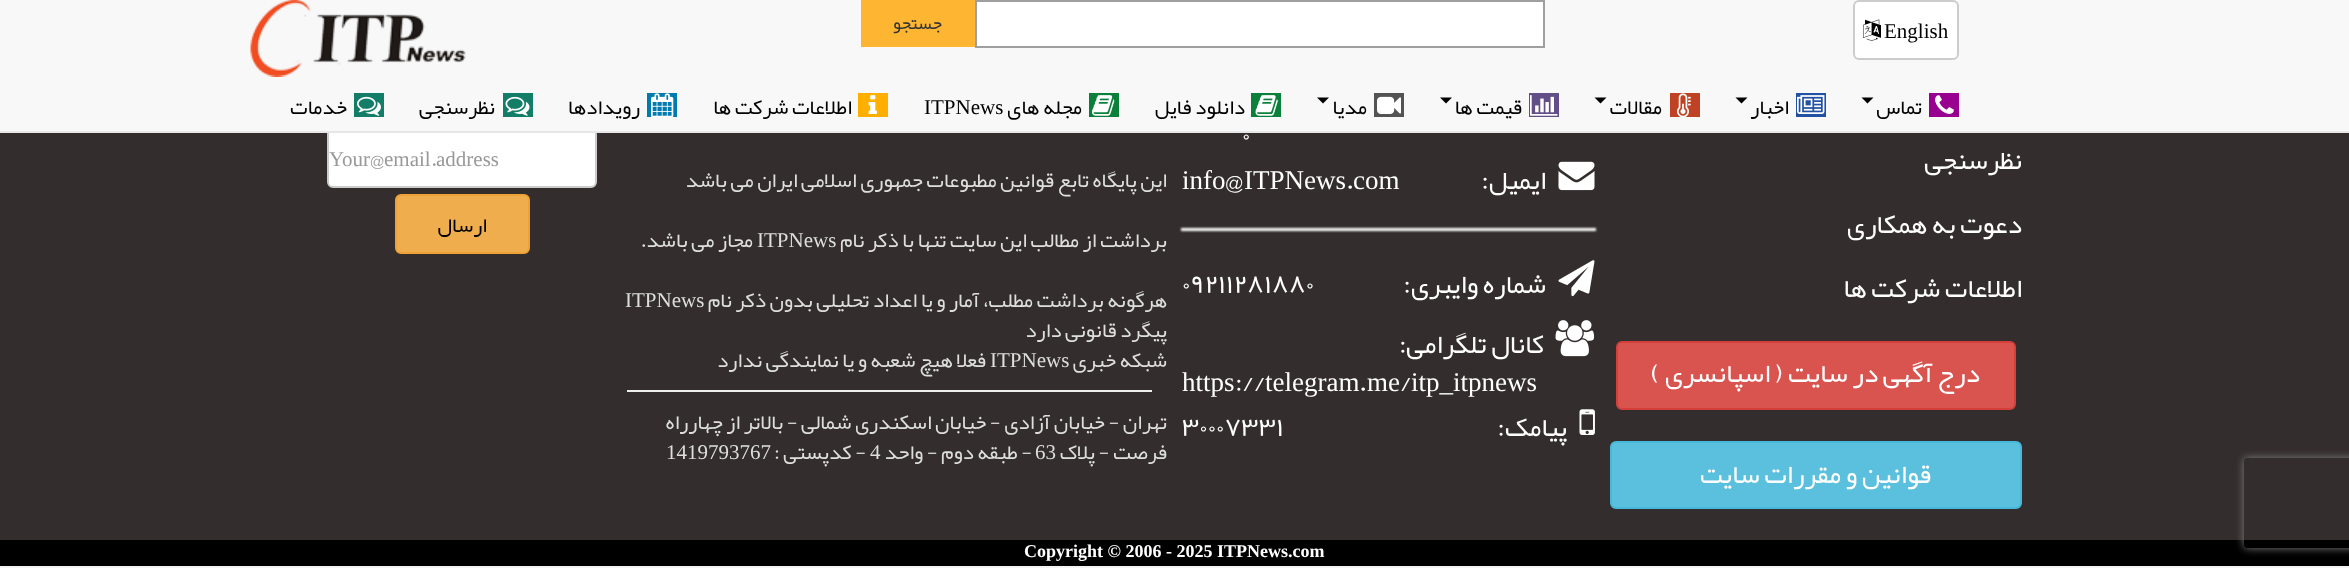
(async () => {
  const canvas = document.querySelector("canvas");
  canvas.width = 2349;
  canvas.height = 568;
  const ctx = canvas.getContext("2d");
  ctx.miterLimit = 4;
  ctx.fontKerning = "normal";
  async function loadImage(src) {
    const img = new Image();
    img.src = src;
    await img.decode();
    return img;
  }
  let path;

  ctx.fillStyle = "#f4f4f2";
  ctx.fillRect(0, 0, 2349, 568);
  ctx.fillStyle = "#332d2d";
  ctx.fillRect(0, 133, 2349, 407);
  ctx.fillStyle = "#ffffff";
  ctx.beginPath();
  ctx.roundRect(328, 129, 268, 58, 5);
  ctx.fill();
  ctx.strokeStyle = "#cccccc";
  ctx.lineWidth = 2;
  ctx.stroke();
  ctx.fillStyle = "#f8f8f8";
  ctx.fillRect(0, 0, 2349, 131);
  ctx.fillStyle = "#e7e7e7";
  ctx.fillRect(0, 131, 2349, 2);
  ctx.drawImage(await loadImage("img/1.png"), 313, 14, 153, 56);
  ctx.drawImage(await loadImage("img/2.png"), 250, 0, 61, 77);
  ctx.fillStyle = "#ffffff";
  ctx.beginPath();
  ctx.roundRect(1854, 1, 104, 58, 5);
  ctx.fill();
  ctx.stroke();
  ctx.drawImage(await loadImage("img/3.png"), 1863, 19, 18, 22);
  ctx.beginPath();
  ctx.rect(976, 1, 568, 46);
  ctx.fill();
  ctx.strokeStyle = "#9f9f9f";
  ctx.stroke();
  ctx.fillStyle = "#feb632";
  ctx.fillRect(861, 0, 114, 47);
  ctx.fillStyle = "#98008f";
  ctx.fillRect(1929, 93, 30, 24);
  ctx.drawImage(await loadImage("img/4.png"), 1935, 95, 19, 19);
  ctx.fillStyle = "#000000";
  path = new Path2D("M1861.5 97.5H1873.5L1867.5 103.5Z");
  ctx.fill(path);
  ctx.fillStyle = "#2251a3";
  ctx.fillRect(1796, 93, 30, 24);
  ctx.drawImage(await loadImage("img/5.png"), 1797, 95, 28, 19);
  ctx.fillStyle = "#000000";
  path = new Path2D("M1735.5 97.5H1747.5L1741.5 103.5Z");
  ctx.fill(path);
  ctx.fillStyle = "#be4223";
  ctx.fillRect(1670, 93, 30, 24);
  ctx.drawImage(await loadImage("img/6.png"), 1677, 93, 14, 24);
  ctx.fillStyle = "#000000";
  path = new Path2D("M1594.5 97.5H1606.5L1600.5 103.5Z");
  ctx.fill(path);
  ctx.fillStyle = "#624f87";
  ctx.fillRect(1529, 93, 30, 24);
  ctx.drawImage(await loadImage("img/7.png"), 1530, 95, 28, 21);
  ctx.fillStyle = "#000000";
  path = new Path2D("M1440 97.5H1452L1446 103.5Z");
  ctx.fill(path);
  ctx.fillStyle = "#545354";
  ctx.fillRect(1374, 93, 30, 24);
  ctx.drawImage(await loadImage("img/8.png"), 1377, 96, 24, 18);
  ctx.fillStyle = "#000000";
  path = new Path2D("M1317 97.5H1329L1323 103.5Z");
  ctx.fill(path);
  ctx.fillStyle = "#0a803a";
  ctx.fillRect(1251, 93, 30, 24);
  ctx.drawImage(await loadImage("img/9.png"), 1255, 95, 23, 21);
  ctx.fillRect(1089, 93, 30, 24);
  ctx.drawImage(await loadImage("img/10.png"), 1092, 95, 23, 21);
  ctx.fillStyle = "#ffaf00";
  ctx.fillRect(858, 93, 30, 24);
  ctx.drawImage(await loadImage("img/11.png"), 868, 95, 10, 19);
  ctx.fillStyle = "#007bb0";
  ctx.fillRect(647, 93, 30, 24);
  ctx.drawImage(await loadImage("img/12.png"), 651, 93, 23, 24);
  ctx.fillStyle = "#137d68";
  ctx.fillRect(503, 93, 30, 24);
  ctx.drawImage(await loadImage("img/13.png"), 505, 96, 25, 20);
  ctx.fillRect(354, 93, 30, 24);
  ctx.drawImage(await loadImage("img/14.png"), 357, 96, 24, 20);
  ctx.fillStyle = "#d9534f";
  ctx.beginPath();
  ctx.roundRect(1617, 342, 398, 67, 5);
  ctx.fill();
  ctx.strokeStyle = "#d43f3a";
  ctx.stroke();
  ctx.fillStyle = "#5bc0de";
  ctx.beginPath();
  ctx.roundRect(1611, 442, 410, 66, 5);
  ctx.fill();
  ctx.strokeStyle = "#46b8da";
  ctx.stroke();
  ctx.drawImage(await loadImage("img/15.png"), 1558, 161, 37, 30);
  ctx.fillStyle = "#ffffff";
  ctx.filter = "blur(1px)";
  ctx.beginPath();
  ctx.rect(1181, 228, 415, 3);
  ctx.fill();
  ctx.filter = "none";
  ctx.drawImage(await loadImage("img/16.png"), 1558, 260, 37, 37);
  ctx.drawImage(await loadImage("img/17.png"), 1555, 320, 40, 37);
  ctx.drawImage(await loadImage("img/18.png"), 1579, 409, 16, 26);
  ctx.fillStyle = "#eeeeee";
  ctx.fillRect(627, 390, 525, 2);
  ctx.fillStyle = "#f0ad4e";
  ctx.beginPath();
  ctx.roundRect(396, 195, 133, 58, 5);
  ctx.fill();
  ctx.strokeStyle = "#eea236";
  ctx.stroke();
  ctx.fillStyle = "#000000";
  ctx.fillRect(0, 540, 2349, 26);
  ctx.save();
  path = new Path2D("M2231 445H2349V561H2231ZM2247 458H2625C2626.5 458 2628 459.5 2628 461V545C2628 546.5 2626.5 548 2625 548H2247C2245.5 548 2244 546.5 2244 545V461C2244 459.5 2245.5 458 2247 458Z");
  ctx.clip(path, "evenodd");
  ctx.fillStyle = "#808080";
  ctx.filter = "blur(4px)";
  ctx.beginPath();
  ctx.roundRect(2244, 458, 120, 90, 3);
  ctx.fill();
  ctx.filter = "none";
  ctx.restore();
  ctx.font = "21px Liberation Serif";
  ctx.fillText("English", 1884, 38);
  ctx.direction = "rtl";
  ctx.font = "18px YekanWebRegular";
  ctx.fillStyle = "#333333";
  ctx.fillText("جستجو", 942, 29);
  ctx.font = "21px YekanWebRegular";
  ctx.fillStyle = "#000000";
  for (const [text, x, y] of [
    ["تماس", 1922, 114],
    ["اخبار", 1789, 114],
    ["مقالات", 1662, 114],
    ["قیمت ها", 1522, 114],
    ["مدیا", 1367, 114],
    ["دانلود فایل", 1245, 114],
    ["مجله های", 1082, 114],
  ]) {
    ctx.fillText(text, x, y);
  }
  ctx.direction = "ltr";
  ctx.font = "21px Liberation Serif";
  ctx.fillText("ITPNews", 924, 114);
  ctx.direction = "rtl";
  ctx.font = "21px YekanWebRegular";
  for (const [text, x, y] of [
    ["اطلاعات شرکت ها", 852, 114],
    ["رویدادها", 640, 114],
    ["نظرسنجی", 495, 114],
    ["خدمات", 347, 114],
  ]) {
    ctx.fillText(text, x, y);
  }
  ctx.font = "27px YekanWebRegular";
  ctx.fillStyle = "#ffffff";
  for (const [text, x, y] of [
    ["نظرسنجی", 2022, 169],
    ["دعوت به همکاری", 2022, 233],
    ["اطلاعات شرکت ها", 2022, 297],
    ["درج آگهی در سایت ( اسپانسری )", 1980, 382],
    ["قوانین و مقررات سایت", 1931, 483],
  ]) {
    ctx.fillText(text, x, y);
  }
  ctx.direction = "ltr";
  ctx.fillText("۰", 1242, 144);
  ctx.direction = "rtl";
  ctx.fillText("ایمیل:", 1546, 189);
  ctx.direction = "ltr";
  ctx.font = "27px Liberation Serif";
  ctx.fillText("com", 1353, 189);
  ctx.font = "27px YekanWebRegular";
  ctx.fillText(".", 1346, 189);
  ctx.font = "27px Liberation Serif";
  ctx.fillText("ITPNews", 1244, 189);
  ctx.font = "27px YekanWebRegular";
  ctx.fillText("@", 1225, 189);
  ctx.font = "27px Liberation Serif";
  ctx.fillText("info", 1182, 189);
  ctx.direction = "rtl";
  ctx.font = "27px YekanWebRegular";
  ctx.fillText("شماره وایبری:", 1546, 293);
  ctx.direction = "ltr";
  ctx.fillText("۰۹۲۱۱۲۸۱۸۸۰", 1182, 293);
  ctx.direction = "rtl";
  ctx.fillText("کانال تلگرامی:", 1544, 353);
  ctx.direction = "ltr";
  ctx.font = "27px Liberation Serif";
  ctx.fillText("itp_itpnews", 1411, 391);
  ctx.font = "27px YekanWebRegular";
  ctx.fillText("/", 1400, 391);
  ctx.font = "27px Liberation Serif";
  ctx.fillText("me", 1367, 391);
  ctx.font = "27px YekanWebRegular";
  ctx.fillText(".", 1359, 391);
  ctx.font = "27px Liberation Serif";
  ctx.fillText("telegram", 1265, 391);
  ctx.font = "27px YekanWebRegular";
  ctx.fillText("://", 1235, 391);
  ctx.font = "27px Liberation Serif";
  ctx.fillText("https", 1182, 391);
  ctx.direction = "rtl";
  ctx.font = "27px YekanWebRegular";
  ctx.fillText("پیامک:", 1567, 436);
  ctx.direction = "ltr";
  ctx.fillText("۳۰۰۰۷۳۳۱", 1182, 436);
  ctx.direction = "rtl";
  ctx.font = "21px YekanWebRegular";
  ctx.fillStyle = "#dedede";
  for (const [text, x, y] of [
    ["این پایگاه تابع قوانین مطبوعات جمهوری اسلامی ایران می باشد", 1167, 187],
    ["برداشت از مطالب این سایت تنها", 1167, 247],
    ["با ذکر نام", 914, 247],
  ]) {
    ctx.fillText(text, x, y);
  }
  ctx.direction = "ltr";
  ctx.font = "21px Liberation Serif";
  ctx.fillText("ITPNews", 757, 247);
  ctx.direction = "rtl";
  ctx.font = "21px YekanWebRegular";
  ctx.fillText("مجاز می باشد.", 753, 247);
  ctx.fillText("هرگونه برداشت مطلب، آمار و یا اعداد تحلیلی بدون ذکر نام", 1167, 307);
  ctx.direction = "ltr";
  ctx.font = "21px Liberation Serif";
  ctx.fillText("ITPNews", 625, 307);
  ctx.direction = "rtl";
  ctx.font = "21px YekanWebRegular";
  ctx.fillText("پیگرد قانونی دارد", 1167, 337);
  ctx.fillText("شبکه خبری", 1167, 367);
  ctx.direction = "ltr";
  ctx.font = "21px Liberation Serif";
  ctx.fillText("ITPNews", 990, 367);
  ctx.direction = "rtl";
  ctx.font = "21px YekanWebRegular";
  for (const [text, x, y] of [
    ["فعلا هیچ شعبه و یا نمایندگی ندارد", 986, 367],
    ["تهران - خیابان آزادی - خیابان اسکندری شمالی - بالاتر از چهارراه", 1167, 429],
    ["فرصت - پلاک", 1167, 459],
  ]) {
    ctx.fillText(text, x, y);
  }
  ctx.direction = "ltr";
  ctx.font = "21px Liberation Serif";
  ctx.fillText("63", 1035, 459);
  ctx.direction = "rtl";
  ctx.font = "21px YekanWebRegular";
  ctx.fillText("- طبقه دوم - واحد", 1032, 459);
  ctx.direction = "ltr";
  ctx.font = "21px Liberation Serif";
  ctx.fillText("4", 870, 459);
  ctx.direction = "rtl";
  ctx.font = "21px YekanWebRegular";
  ctx.fillText("- کدپستی :", 866, 459);
  ctx.direction = "ltr";
  ctx.font = "21px Liberation Serif";
  ctx.fillText("1419793767", 666, 459);
  ctx.fillStyle = "#999999";
  ctx.fillText("address", 436, 166);
  ctx.font = "21px YekanWebRegular";
  ctx.fillText(".", 431, 166);
  ctx.font = "21px Liberation Serif";
  ctx.fillText("email", 384, 166);
  ctx.font = "21px YekanWebRegular";
  ctx.fillText("@", 370, 166);
  ctx.font = "21px Liberation Serif";
  ctx.fillText("Your", 329, 166);
  ctx.direction = "rtl";
  ctx.font = "21px YekanWebRegular";
  ctx.fillStyle = "#000000";
  ctx.fillText("ارسال", 487, 232);
  ctx.direction = "ltr";
  ctx.font = "bold 18px Liberation Serif";
  ctx.fillStyle = "#ffffff";
  ctx.fillText("Copyright © 2006 - 2025 ITPNews.com", 1024, 557);
})();
